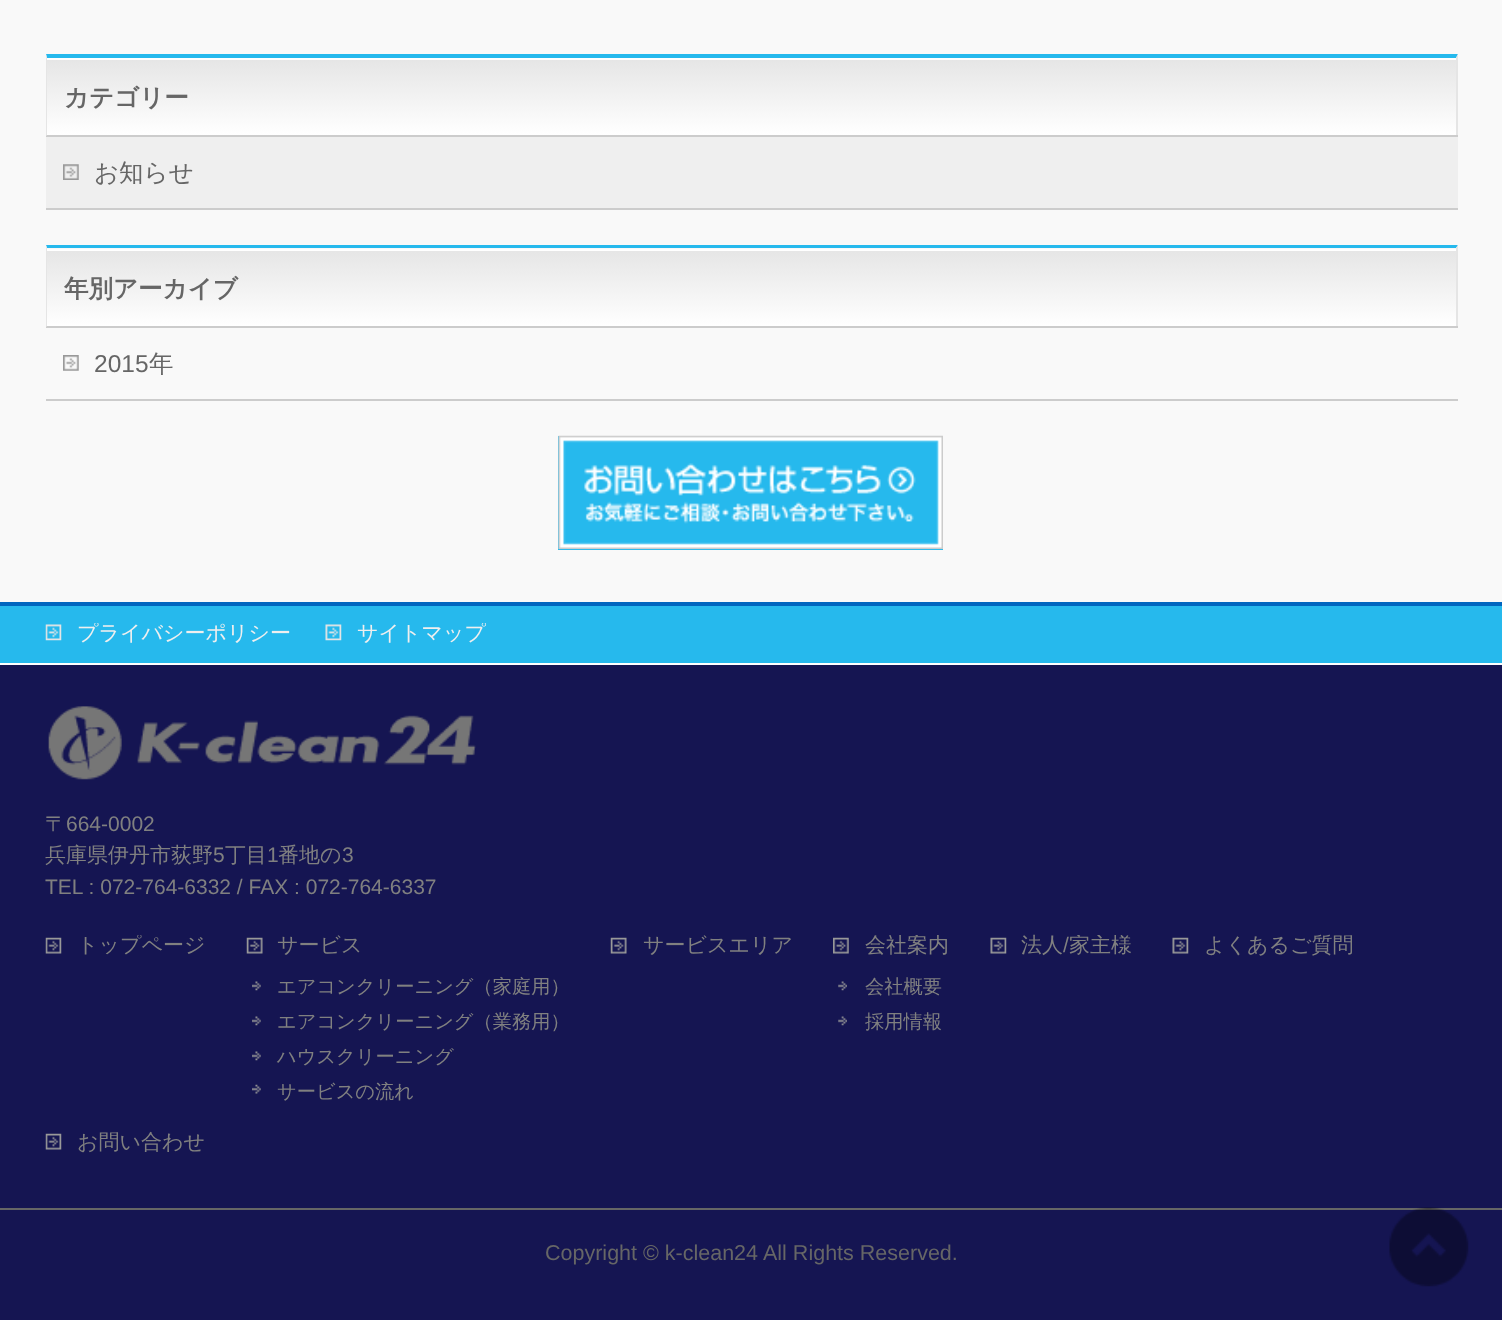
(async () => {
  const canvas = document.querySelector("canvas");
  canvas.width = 1502;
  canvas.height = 1320;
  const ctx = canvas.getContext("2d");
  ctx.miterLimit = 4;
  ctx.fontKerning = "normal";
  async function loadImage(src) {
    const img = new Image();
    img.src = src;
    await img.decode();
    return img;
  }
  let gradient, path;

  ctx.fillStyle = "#f9f9f9";
  ctx.fillRect(0, 0, 1502, 1320);
  gradient = ctx.createLinearGradient(47, 58, 47, 135);
  gradient.addColorStop(0, "#e5e5e5");
  gradient.addColorStop(1, "#ffffff");
  ctx.fillStyle = gradient;
  ctx.fillRect(47, 60, 1409, 75);
  ctx.fillStyle = "#ffffff";
  ctx.fillRect(47, 58, 1409, 2);
  ctx.fillStyle = "#26b9ed";
  path = new Path2D("M46 54H1458L1456 58H47Z");
  ctx.fill(path);
  ctx.fillStyle = "#e5e5e5";
  path = new Path2D("M1458 54V136L1456 135V58Z");
  ctx.fill(path);
  ctx.fillStyle = "#cccccc";
  ctx.fillRect(46, 135, 1412, 2);
  ctx.fillStyle = "#e5e5e5";
  path = new Path2D("M46 136V54L47 58V135Z");
  ctx.fill(path);
  ctx.fillStyle = "#cccccc";
  ctx.fillRect(46, 208, 1412, 2);
  ctx.fillStyle = "#efefef";
  ctx.fillRect(46, 137, 1412, 71);
  ctx.drawImage(await loadImage("img/1.png"), 63, 164, 16, 16);
  gradient = ctx.createLinearGradient(47, 249, 47, 326);
  gradient.addColorStop(0, "#e5e5e5");
  gradient.addColorStop(1, "#ffffff");
  ctx.fillStyle = gradient;
  ctx.fillRect(47, 251, 1409, 75);
  ctx.fillStyle = "#ffffff";
  ctx.fillRect(47, 249, 1409, 2);
  ctx.fillStyle = "#26b9ed";
  path = new Path2D("M46 245H1458L1456 248H47Z");
  ctx.fill(path);
  ctx.fillStyle = "#e5e5e5";
  path = new Path2D("M1458 245V327L1456 326V248Z");
  ctx.fill(path);
  ctx.fillStyle = "#cccccc";
  ctx.fillRect(46, 326, 1412, 2);
  ctx.fillStyle = "#e5e5e5";
  path = new Path2D("M46 327V245L47 248V326Z");
  ctx.fill(path);
  ctx.fillStyle = "#cccccc";
  ctx.fillRect(46, 399, 1412, 2);
  ctx.drawImage(await loadImage("img/2.png"), 63, 355, 16, 16);
  ctx.fillStyle = "#26b9ed";
  ctx.fillRect(558, 436, 385, 114);
  ctx.drawImage(await loadImage("img/3.png"), 558, 435, 385, 115);
  ctx.fillRect(0, 606, 1502, 57);
  ctx.fillStyle = "#0066bf";
  ctx.fillRect(0, 602, 1502, 4);
  ctx.drawImage(await loadImage("img/4.png"), 45, 624, 17, 17);
  ctx.drawImage(await loadImage("img/5.png"), 325, 624, 17, 17);
  ctx.fillStyle = "#151552";
  ctx.fillRect(0, 665, 1502, 543);
  ctx.fillStyle = "#ffffff";
  ctx.fillRect(0, 663, 1502, 2);
  ctx.drawImage(await loadImage("img/6.png"), 48, 706, 428, 74);
  ctx.drawImage(await loadImage("img/7.png"), 45, 937, 17, 17);
  ctx.drawImage(await loadImage("img/8.png"), 246, 937, 17, 17);
  ctx.drawImage(await loadImage("img/9.png"), 252, 981, 9, 10);
  ctx.drawImage(await loadImage("img/9.png"), 252, 1016, 9, 10);
  ctx.drawImage(await loadImage("img/9.png"), 252, 1051, 9, 10);
  ctx.drawImage(await loadImage("img/10.png"), 252, 1084, 9, 10);
  ctx.drawImage(await loadImage("img/8.png"), 610, 937, 17, 17);
  ctx.drawImage(await loadImage("img/11.png"), 833, 937, 16, 17);
  ctx.drawImage(await loadImage("img/12.png"), 838, 981, 9, 10);
  ctx.drawImage(await loadImage("img/12.png"), 838, 1016, 9, 10);
  ctx.drawImage(await loadImage("img/13.png"), 990, 937, 17, 17);
  ctx.drawImage(await loadImage("img/14.png"), 1172, 937, 17, 17);
  ctx.drawImage(await loadImage("img/7.png"), 45, 1133, 17, 17);
  ctx.fillStyle = "#151552";
  ctx.fillRect(0, 1210, 1502, 110);
  ctx.fillStyle = "#666666";
  ctx.fillRect(0, 1208, 1502, 2);
  ctx.drawImage(await loadImage("img/15.png"), 1389, 1207, 80, 80);
  ctx.font = "bold 24.5px WenQuanYi Zen Hei";
  ctx.fillText("カテゴリー", 64, 106);
  ctx.font = "500 24.5px WenQuanYi Zen Hei";
  ctx.fillText("お知らせ", 94, 181);
  ctx.font = "bold 24.5px WenQuanYi Zen Hei";
  ctx.fillText("年別アーカイブ", 64, 297);
  ctx.font = "24.5px Liberation Sans";
  ctx.fillText("2015", 94, 372);
  ctx.font = "500 24.5px WenQuanYi Zen Hei";
  ctx.fillText("年", 149, 372);
  ctx.save();
  ctx.beginPath();
  ctx.rect(46, 623, 1412, 23);
  ctx.clip();
  ctx.font = "500 21px WenQuanYi Zen Hei";
  ctx.fillStyle = "#efefef";
  ctx.fillText("プライバシーポリシー", 77, 640);
  ctx.fillText("サイトマップ", 357, 640);
  ctx.restore();
  ctx.font = "500 21px WenQuanYi Zen Hei";
  ctx.fillStyle = "#808080";
  ctx.fillText("〒", 45, 831);
  ctx.font = "21px Liberation Sans";
  ctx.fillText("664-0002", 66, 831);
  ctx.font = "500 21px WenQuanYi Zen Hei";
  ctx.fillText("兵庫県伊丹市荻野", 45, 862);
  ctx.font = "21px Liberation Sans";
  ctx.fillText("5", 213, 862);
  ctx.font = "500 21px WenQuanYi Zen Hei";
  ctx.fillText("丁目", 225, 862);
  ctx.font = "21px Liberation Sans";
  ctx.fillText("1", 267, 862);
  ctx.font = "500 21px WenQuanYi Zen Hei";
  ctx.fillText("番地の", 278, 862);
  ctx.font = "21px Liberation Sans";
  ctx.fillText("3", 342, 862);
  ctx.fillText("TEL : 072-764-6332 / FAX : 072-764-6337", 45, 894);
  ctx.save();
  ctx.beginPath();
  ctx.rect(46, 935, 194, 31);
  ctx.clip();
  ctx.font = "500 21px WenQuanYi Zen Hei";
  ctx.fillText("トップページ", 77, 952);
  ctx.restore();
  ctx.font = "500 21px WenQuanYi Zen Hei";
  ctx.fillText("サービス", 277, 952);
  ctx.font = "500 19.25px WenQuanYi Zen Hei";
  for (const [text, x, y] of [
    ["エアコンクリーニング（家庭用）", 277, 993],
    ["エアコンクリーニング（業務用）", 277, 1028],
    ["ハウスクリーニング", 277, 1063],
    ["サービスの流れ", 277, 1098],
  ]) {
    ctx.fillText(text, x, y);
  }
  ctx.font = "500 21px WenQuanYi Zen Hei";
  ctx.fillText("サービスエリア", 643, 952);
  ctx.save();
  ctx.beginPath();
  ctx.rect(833, 935, 151, 31);
  ctx.clip();
  ctx.fillText("会社案内", 865, 952);
  ctx.restore();
  ctx.font = "500 19.25px WenQuanYi Zen Hei";
  ctx.fillText("会社概要", 865, 993);
  ctx.fillText("採用情報", 865, 1028);
  ctx.font = "500 21px WenQuanYi Zen Hei";
  ctx.fillText("法人", 1021, 952);
  ctx.font = "21px Liberation Sans";
  ctx.fillText("/", 1063, 952);
  ctx.save();
  ctx.beginPath();
  ctx.rect(991, 935, 176, 31);
  ctx.clip();
  ctx.font = "500 21px WenQuanYi Zen Hei";
  ctx.fillText("家主様", 1069, 952);
  ctx.restore();
  ctx.font = "500 21px WenQuanYi Zen Hei";
  ctx.fillText("よくあるご質問", 1204, 952);
  ctx.fillText("お問い合わせ", 77, 1149);
  ctx.font = "21.5px Liberation Sans";
  ctx.fillStyle = "#666666";
  ctx.fillText("Copyright © k-clean24", 545, 1260);
  ctx.fillText("All Rights Reserved.", 763, 1260);
})();
